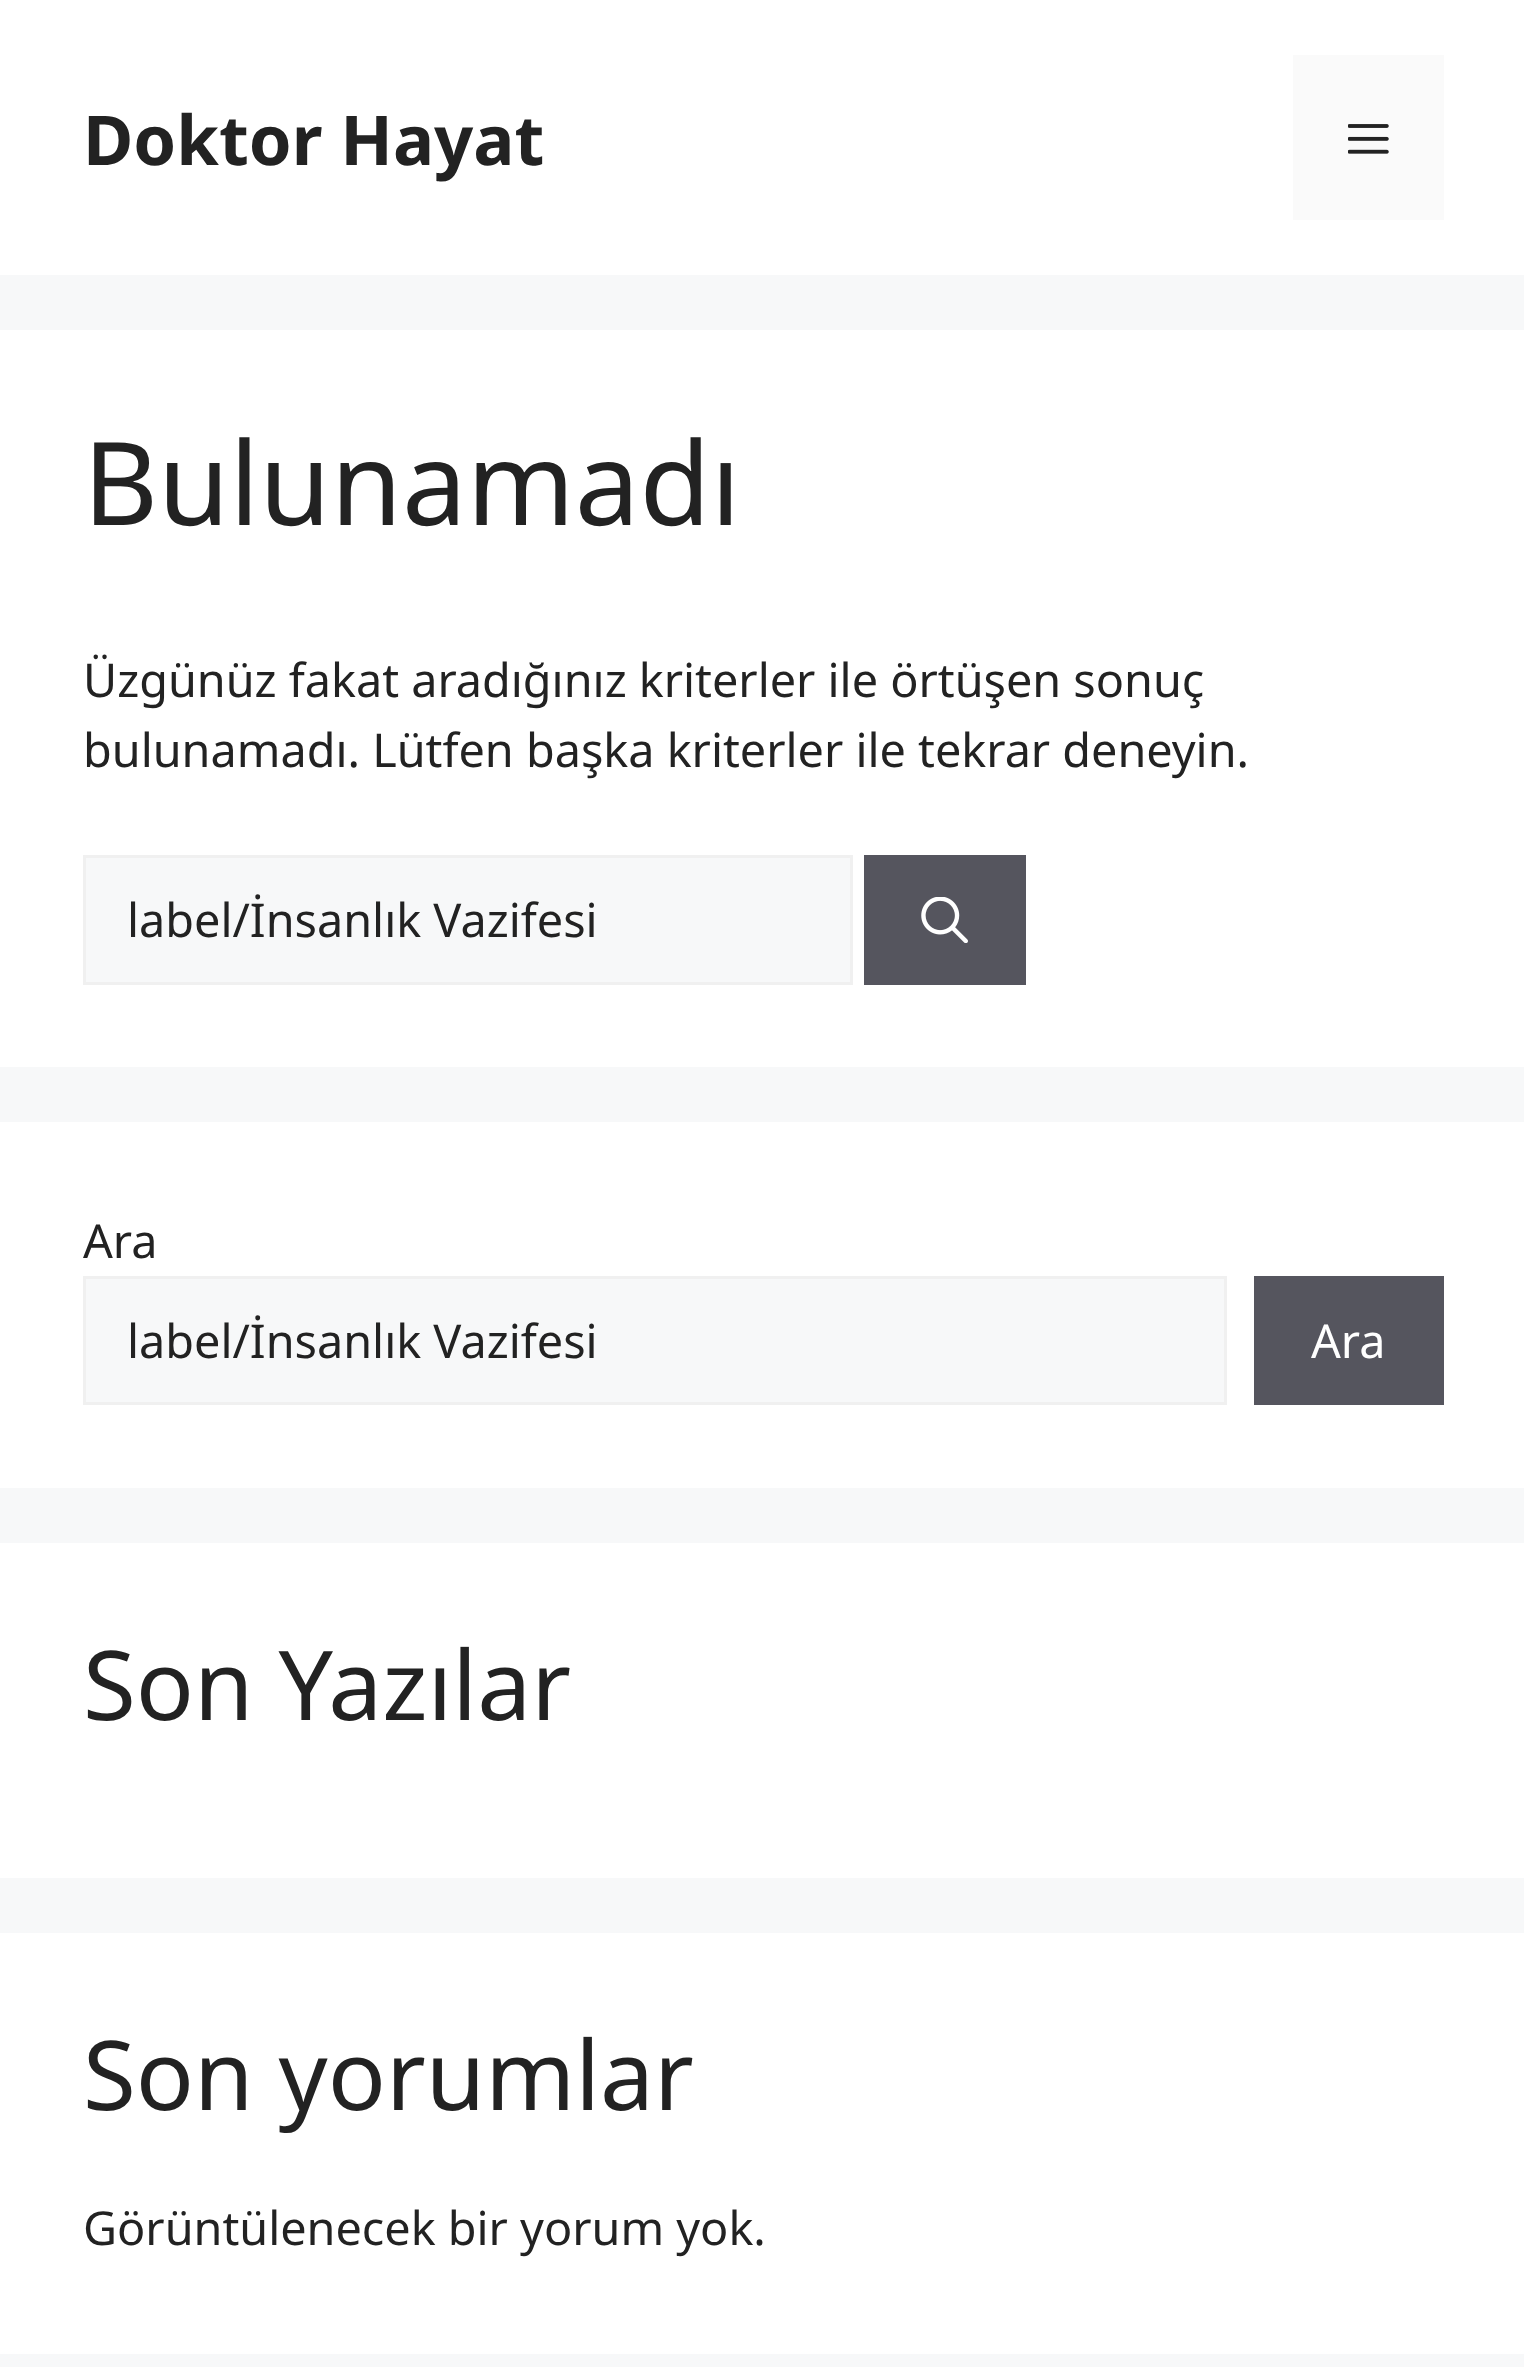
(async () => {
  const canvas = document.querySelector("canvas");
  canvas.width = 1524;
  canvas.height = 2367;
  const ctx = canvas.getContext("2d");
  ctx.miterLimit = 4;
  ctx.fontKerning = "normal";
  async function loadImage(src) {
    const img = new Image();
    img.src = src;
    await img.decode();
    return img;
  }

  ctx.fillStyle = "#f7f8f9";
  ctx.fillRect(0, 0, 1524, 2367);
  ctx.fillStyle = "#ffffff";
  ctx.fillRect(0, 0, 1524, 275);
  ctx.fillStyle = "#fafafa";
  ctx.fillRect(1293, 55, 151, 165);
  ctx.drawImage(await loadImage("img/1.png"), 1348, 124, 41, 30);
  ctx.fillStyle = "#ffffff";
  ctx.fillRect(0, 330, 1524, 737);
  ctx.fillStyle = "#f7f8f9";
  ctx.beginPath();
  ctx.rect(84.5, 856.5, 767, 127);
  ctx.fill();
  ctx.strokeStyle = "#f0f0f0";
  ctx.lineWidth = 3;
  ctx.stroke();
  ctx.fillStyle = "#55555e";
  ctx.fillRect(864, 855, 162, 130);
  ctx.drawImage(await loadImage("img/2.png"), 921, 897, 47, 46);
  ctx.fillStyle = "#ffffff";
  ctx.fillRect(0, 1122, 1524, 366);
  ctx.fillStyle = "#f7f8f9";
  ctx.beginPath();
  ctx.rect(84.5, 1277.5, 1141, 126);
  ctx.fill();
  ctx.stroke();
  for (const [x, y, w, h, color] of [
    [1254, 1276, 190, 129, "#55555e"],
    [0, 1543, 1524, 335, "#ffffff"],
    [0, 1933, 1524, 421, "#ffffff"],
  ]) {
    ctx.fillStyle = color;
    ctx.fillRect(x, y, w, h);
  }
  ctx.font = "bold 68.75px Noto Sans";
  ctx.fillStyle = "#222222";
  ctx.fillText("Doktor Hayat", 83, 165);
  ctx.font = "115.5px Noto Sans";
  ctx.fillText("Bulunamadı", 83, 525);
  ctx.font = "46.75px Noto Sans";
  for (const [text, x, y] of [
    ["Üzgünüz fakat aradığınız kriterler ile örtüşen sonuç", 83, 697],
    ["bulunamadı. Lütfen başka kriterler ile tekrar deneyin.", 83, 767],
    ["label/İnsanlık Vazifesi", 127, 937],
    ["Ara", 83, 1258],
    ["label/İnsanlık Vazifesi", 127, 1358],
  ]) {
    ctx.fillText(text, x, y);
  }
  ctx.fillStyle = "#ffffff";
  ctx.fillText("Ara", 1311, 1358);
  ctx.font = "96.25px Noto Sans";
  ctx.fillStyle = "#222222";
  ctx.fillText("Son Yazılar", 83, 1720);
  ctx.fillText("Son yorumlar", 83, 2110);
  ctx.font = "46.75px Noto Sans";
  ctx.fillText("Görüntülenecek bir yorum yok.", 83, 2245);
})();
